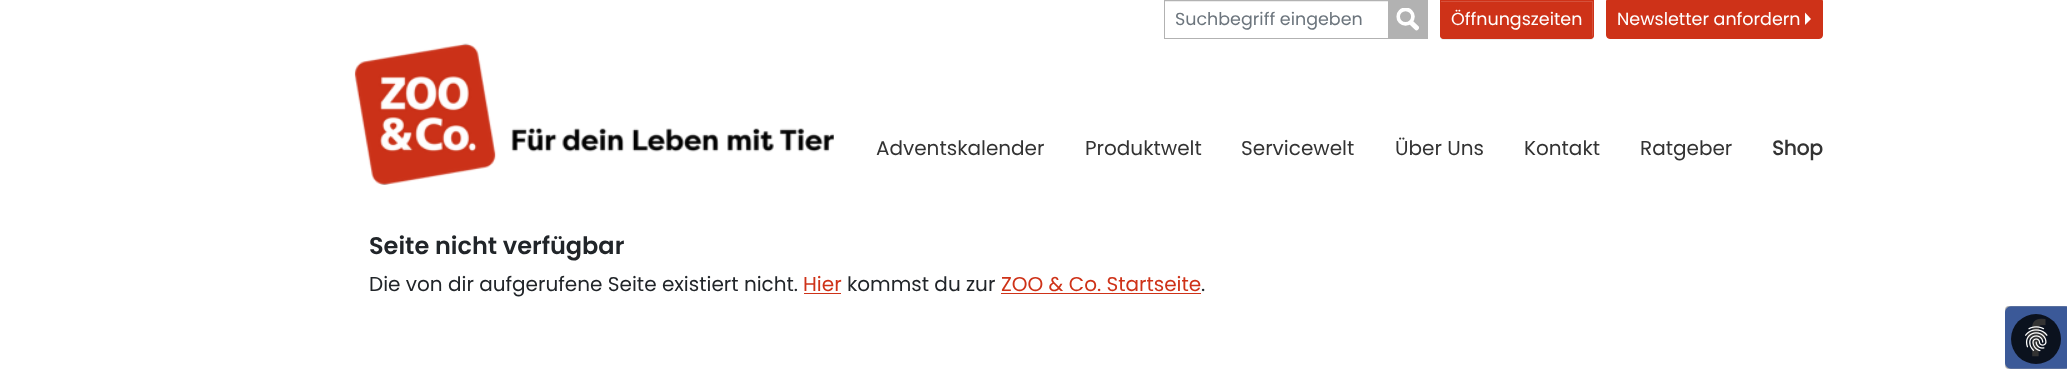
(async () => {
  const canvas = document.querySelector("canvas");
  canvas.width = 2067;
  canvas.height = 369;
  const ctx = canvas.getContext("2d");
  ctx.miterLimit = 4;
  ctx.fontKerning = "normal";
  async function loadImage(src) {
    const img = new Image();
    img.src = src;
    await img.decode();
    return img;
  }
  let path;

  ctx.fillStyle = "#ffffff";
  ctx.fillRect(0, 0, 2067, 369);
  ctx.drawImage(await loadImage("img/1.png"), 354, 43, 480, 142);
  ctx.fillStyle = "#ececec";
  ctx.fillRect(1165, 1, 223, 1);
  ctx.strokeStyle = "#b2b2b2";
  ctx.strokeRect(1164.5, 0.5, 224, 38);
  ctx.fillStyle = "#b2b2b2";
  ctx.fillRect(1389, 0, 39, 39);
  ctx.drawImage(await loadImage("img/2.png"), 1396, 8, 23, 23);
  ctx.fillStyle = "rgba(0, 0, 0, 0.07)";
  ctx.filter = "blur(0.5px)";
  ctx.beginPath();
  ctx.roundRect(1440, 1, 154, 39, 4);
  ctx.fill();
  ctx.filter = "none";
  ctx.fillStyle = "#ce3218";
  ctx.beginPath();
  ctx.roundRect(1440, 0, 154, 39, [0, 0, 4, 4]);
  ctx.fill();
  ctx.fillStyle = "#d5513b";
  path = new Path2D("M1441 2H1592V38L1593 36V1H1441Z");
  ctx.fill(path);
  ctx.beginPath();
  ctx.roundRect(1440.5, 0.5, 153, 38, [0, 0, 3.5, 3.5]);
  ctx.strokeStyle = "#ce3218";
  ctx.stroke();
  ctx.fillStyle = "#ce3218";
  ctx.beginPath();
  ctx.roundRect(1606.5, 0.5, 216, 38, [0, 0, 3.5, 3.5]);
  ctx.fill();
  ctx.stroke();
  ctx.fillStyle = "#ffffff";
  path = new Path2D("M1805 12.5V25L1811 19Z");
  ctx.fill(path);
  ctx.fillStyle = "#b2b2b2";
  ctx.beginPath();
  ctx.roundRect(2005, 306, 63, 63, 4);
  ctx.fill();
  ctx.drawImage(await loadImage("img/3.png"), 2005, 306, 62, 63);
  ctx.fillStyle = "#ce3218";
  ctx.fillRect(804, 293, 37, 1);
  ctx.fillRect(1001, 293, 200, 1);
  ctx.fillStyle = "rgba(0, 0, 0, 0.8)";
  ctx.beginPath();
  ctx.arc(2036, 339, 25, 0, Math.PI * 2);
  ctx.fill();
  ctx.drawImage(await loadImage("img/4.png"), 2025, 326, 23, 26);
  ctx.font = "17.5px Poppins";
  ctx.fillStyle = "#6c757d";
  ctx.fillText("Suchbegriff eingeben", 1175, 25);
  ctx.fillStyle = "#ffffff";
  ctx.fillText("Öffnungszeiten", 1451, 25);
  ctx.fillText("Newsletter anfordern", 1617, 25);
  ctx.font = "20px Poppins";
  ctx.fillStyle = "#333333";
  for (const [text, x, y] of [
    ["Adventskalender", 876, 155],
    ["Produktwelt", 1085, 155],
    ["Servicewelt", 1241, 155],
    ["Über Uns", 1395, 155],
    ["Kontakt", 1524, 155],
    ["Ratgeber", 1640, 155],
  ]) {
    ctx.fillText(text, x, y);
  }
  ctx.font = "bold 20px Poppins";
  ctx.fillText("Shop", 1772, 155);
  ctx.font = "600 24px Poppins";
  ctx.fillStyle = "#212529";
  ctx.fillText("Seite nicht verfügbar", 369, 254);
  ctx.font = "20px Poppins";
  ctx.fillText("Die von dir aufgerufene Seite existiert nicht.", 369, 291);
  ctx.fillStyle = "#ce3218";
  ctx.fillText("Hier", 803, 291);
  ctx.fillStyle = "#212529";
  ctx.fillText("kommst du zur", 847, 291);
  ctx.fillStyle = "#ce3218";
  ctx.fillText("ZOO & Co. Startseite", 1001, 291);
  ctx.fillStyle = "#212529";
  ctx.fillText(".", 1201, 291);
})();
